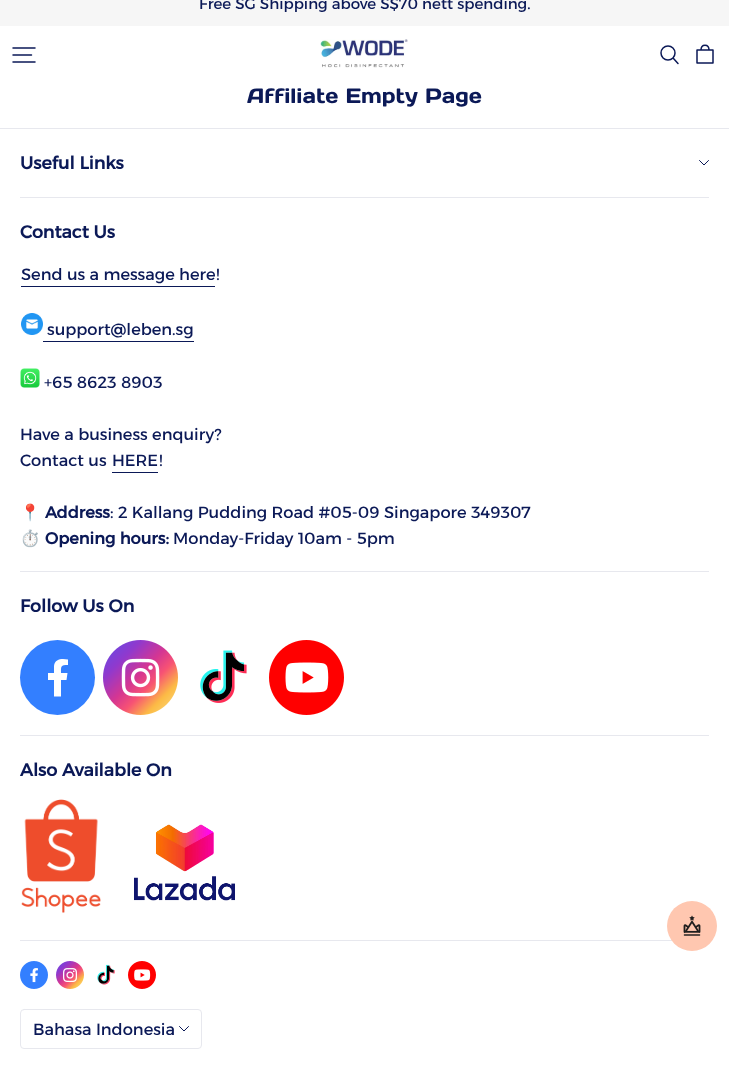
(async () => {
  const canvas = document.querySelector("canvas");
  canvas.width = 729;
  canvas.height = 1075;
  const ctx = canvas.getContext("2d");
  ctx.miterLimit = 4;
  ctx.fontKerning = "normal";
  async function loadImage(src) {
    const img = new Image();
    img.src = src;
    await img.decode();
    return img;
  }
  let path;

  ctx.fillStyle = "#ffffff";
  ctx.fillRect(0, 0, 729, 1075);
  ctx.fillStyle = "#f6f6f6";
  ctx.fillRect(0, 0, 729, 26);
  path = new Path2D("M13 48H35M13 55H31.5M13 62H35");
  ctx.strokeStyle = "#0b1957";
  ctx.lineWidth = 1.5;
  ctx.lineCap = "round";
  ctx.stroke(path);
  ctx.drawImage(await loadImage("img/1.png"), 320, 39, 88, 29);
  ctx.beginPath();
  ctx.arc(668, 53, 7, 0, Math.PI * 2);
  ctx.stroke();
  path = new Path2D("M673.5 58.5L678 63.5");
  ctx.stroke(path);
  path = new Path2D("M697 63V50H713V63ZM701 50C701 43.5 709 43.5 709 50");
  ctx.lineJoin = "round";
  ctx.stroke(path);
  ctx.fillStyle = "#e7e8ee";
  ctx.fillRect(0, 128, 729, 1);
  path = new Path2D("M699.5 160.5L704 165L708.5 160.5");
  ctx.lineWidth = 1;
  ctx.lineJoin = "miter";
  ctx.stroke(path);
  ctx.fillRect(20, 197, 689, 1);
  ctx.fillStyle = "#0b1957";
  ctx.fillRect(21, 286, 194, 1);
  ctx.drawImage(await loadImage("img/2.png"), 21, 313, 22, 22);
  ctx.fillRect(43, 341, 151, 1);
  ctx.drawImage(await loadImage("img/3.png"), 20, 368, 20, 20);
  ctx.fillRect(112, 472, 46, 1);
  ctx.fillStyle = "#e7e8ee";
  ctx.fillRect(20, 571, 689, 1);
  ctx.fillStyle = "#337fff";
  ctx.beginPath();
  ctx.arc(57.5, 677.5, 37.5, 0, Math.PI * 2);
  ctx.fill();
  ctx.fillStyle = "#ffffff";
  path = new Path2D("M66.5 680L67.5 673H61C61 666.5 60.5 665 68 665V659.5C62 658.5 55 658.5 54 666V673H48V680H54V696.5H61V680Z");
  ctx.fill(path);
  ctx.drawImage(await loadImage("img/4.png"), 103, 640, 75, 75);
  ctx.drawImage(await loadImage("img/5.png"), 200, 650, 47, 53);
  ctx.drawImage(await loadImage("img/6.png"), 269, 640, 75, 75);
  ctx.fillStyle = "#e7e8ee";
  ctx.fillRect(20, 735, 689, 1);
  ctx.drawImage(await loadImage("img/7.png"), 21, 799, 80, 114);
  ctx.drawImage(await loadImage("img/8.png"), 134, 824, 101, 77);
  ctx.fillRect(20, 940, 652, 1);
  ctx.drawImage(await loadImage("img/9.png"), 20, 961, 28, 28);
  ctx.drawImage(await loadImage("img/10.png"), 56, 961, 28, 28);
  ctx.drawImage(await loadImage("img/11.png"), 97, 964, 18, 21);
  ctx.drawImage(await loadImage("img/12.png"), 128, 961, 28, 28);
  ctx.beginPath();
  ctx.roundRect(20.5, 1009.5, 181, 39, 3.5);
  ctx.strokeStyle = "#e7e8ee";
  ctx.stroke();
  path = new Path2D("M179.5 1026.5L184 1031L188.5 1026.5");
  ctx.strokeStyle = "#0b1957";
  ctx.stroke(path);
  ctx.fillStyle = "#ffc7b0";
  ctx.beginPath();
  ctx.arc(692, 926, 25, 0, Math.PI * 2);
  ctx.fill();
  ctx.drawImage(await loadImage("img/13.png"), 683, 915, 18, 21);
  ctx.font = "15px Alexandria";
  ctx.fillStyle = "#0b1957";
  ctx.fillText("Free SG Shipping above S$70 nett spending.", 199, 9);
  ctx.font = "20.75px Days One";
  ctx.fillText("Affiliate Empty Page", 247, 103);
  ctx.font = "bold 17.5px Alexandria";
  ctx.fillText("Useful Links", 20, 169);
  ctx.fillText("Contact Us", 20, 238);
  ctx.font = "16.25px Alexandria";
  for (const [text, x, y] of [
    ["Send us a message here", 21, 280],
    ["!", 216, 280],
    ["support@leben.sg", 47, 335],
    ["+65 8623 8903", 44, 388],
    ["Have a business enquiry?", 20, 440],
    ["Contact us", 20, 466],
    ["HERE", 112, 466],
    ["!", 159, 466],
  ]) {
    ctx.fillText(text, x, y);
  }
  ctx.font = "16.25px Noto Color Emoji";
  ctx.fillText("📍", 20, 518);
  ctx.font = "bold 16.25px Alexandria";
  ctx.fillText("Address", 45, 518);
  ctx.font = "16.25px Alexandria";
  ctx.fillText(": 2 Kallang Pudding Road #05-09 Singapore 349307", 110, 518);
  ctx.font = "bold 16.25px Noto Color Emoji";
  ctx.fillText("⏱️", 20, 544);
  ctx.font = "bold 16.25px Alexandria";
  ctx.fillText("Opening hours:", 45, 544);
  ctx.font = "16.25px Alexandria";
  ctx.fillText("Monday-Friday 10am - 5pm", 173, 544);
  ctx.font = "bold 17.5px Alexandria";
  ctx.fillText("Follow Us On", 20, 612);
  ctx.fillText("Also Available On", 20, 776);
  ctx.font = "16.25px Alexandria";
  ctx.fillText("Bahasa Indonesia", 33, 1035);
})();
